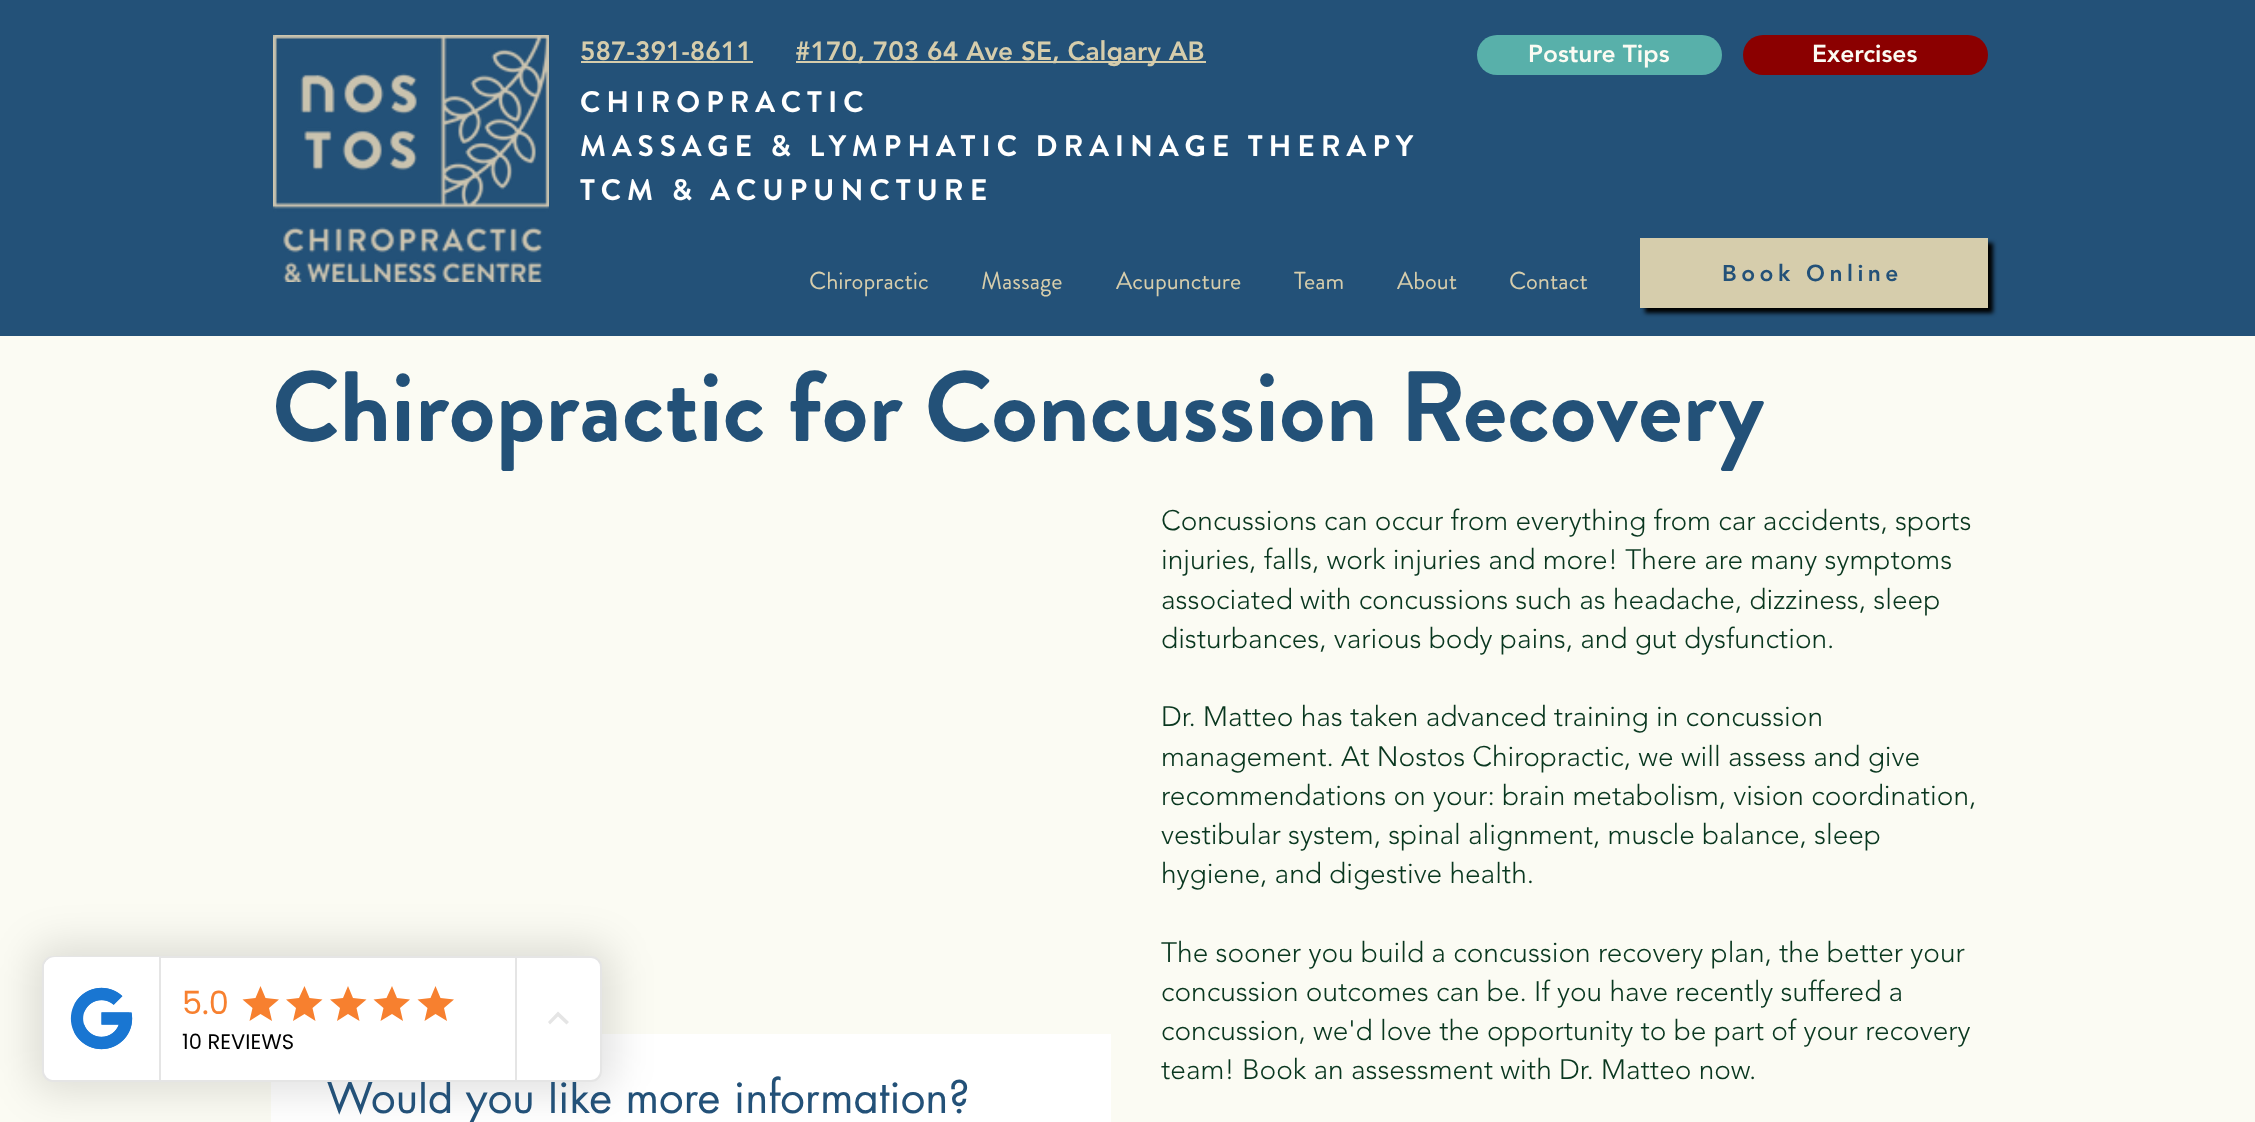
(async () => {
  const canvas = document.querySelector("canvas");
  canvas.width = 2255;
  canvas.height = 1122;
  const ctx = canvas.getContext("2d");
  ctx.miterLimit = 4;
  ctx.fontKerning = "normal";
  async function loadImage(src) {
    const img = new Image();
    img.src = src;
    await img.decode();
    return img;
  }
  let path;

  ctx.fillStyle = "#fbfbf3";
  ctx.fillRect(0, 0, 2255, 1122);
  ctx.fillStyle = "#ffffff";
  ctx.fillRect(271, 1034, 840, 88);
  ctx.fillStyle = "rgba(0, 0, 0, 0.12)";
  ctx.filter = "blur(21px)";
  ctx.beginPath();
  ctx.roundRect(32, 945, 581, 147, 21);
  ctx.fill();
  ctx.filter = "none";
  ctx.fillStyle = "#235178";
  ctx.fillRect(0, 0, 2255, 336);
  ctx.drawImage(await loadImage("img/2.png"), 273, 35, 276, 247);
  ctx.fillStyle = "#d6cdac";
  ctx.fillRect(581, 61, 172, 2);
  ctx.fillRect(796, 61, 410, 2);
  ctx.fillStyle = "#58b0aa";
  ctx.beginPath();
  ctx.roundRect(1477, 35, 245, 40, 20);
  ctx.fill();
  ctx.fillStyle = "#8b0000";
  ctx.beginPath();
  ctx.roundRect(1743, 35, 245, 40, 20);
  ctx.fill();
  ctx.fillStyle = "#000000";
  ctx.filter = "blur(2px)";
  ctx.beginPath();
  ctx.rect(1645, 243, 348, 70);
  ctx.fill();
  ctx.filter = "none";
  ctx.fillStyle = "#d6cdac";
  ctx.fillRect(1640, 238, 348, 70);
  ctx.font = "900 26.25px 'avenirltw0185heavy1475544'";
  ctx.fillText("587-391-8611", 580, 60);
  ctx.fillText("#170, 703 64 Ave SE, Calgary AB", 795, 60);
  ctx.font = "900 24.5px 'avenirltw0185heavy1475544'";
  ctx.fillStyle = "#fbfbf3";
  ctx.fillText("Posture Tips", 1528, 62);
  ctx.fillText("Exercises", 1812, 62);
  ctx.letterSpacing = "5.95px";
  ctx.font = "bold 29.75px Brandon Grotesque";
  ctx.fillStyle = "#ffffff";
  for (const [text, x, y] of [
    ["CHIROPRACTIC", 580, 112],
    ["MASSAGE & LYMPHATIC DRAINAGE THERAPY", 580, 156],
    ["TCM & ACUPUNCTURE", 580, 200],
  ]) {
    ctx.fillText(text, x, y);
  }
  ctx.letterSpacing = "0px";
  ctx.font = "24.5px Brandon Grotesque";
  ctx.fillStyle = "#d6cdac";
  for (const [text, x, y] of [
    ["Chiropractic", 809, 289],
    ["Massage", 981, 289],
    ["Acupuncture", 1116, 289],
    ["Team", 1294, 289],
    ["About", 1397, 289],
    ["Contact", 1509, 289],
  ]) {
    ctx.fillText(text, x, y);
  }
  ctx.letterSpacing = "4.5px";
  ctx.font = "900 22.75px 'avenirltw0185heavy1475544'";
  ctx.fillStyle = "#235178";
  ctx.fillText("Book Online", 1722, 281);
  ctx.letterSpacing = "0px";
  ctx.font = "bold 99.75px Brandon Grotesque";
  ctx.fillText("Chiropractic for Concussion Recovery", 272, 441);
  ctx.font = "300 28px 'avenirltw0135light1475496'";
  ctx.fillStyle = "#09371f";
  for (const [text, x, y] of [
    ["Concussions can occur from everything from car accidents, sports", 1161, 530],
    ["injuries, falls, work injuries and more! There are many symptoms", 1161, 569],
    ["associated with concussions such as headache, dizziness, sleep", 1161, 609],
    ["disturbances, various body pains, and gut dysfunction.", 1161, 648],
    ["Dr. Matteo has taken advanced training in concussion", 1161, 726],
    ["management. At Nostos Chiropractic, we will assess and give", 1161, 766],
    ["recommendations on your: brain metabolism, vision coordination,", 1161, 805],
    ["vestibular system, spinal alignment, muscle balance, sleep", 1161, 844],
    ["hygiene, and digestive health.", 1161, 883],
    ["The sooner you build a concussion recovery plan, the better your", 1161, 962],
    ["concussion outcomes can be. If you have recently suffered a", 1161, 1001],
    ["concussion, we'd love the opportunity to be part of your recovery", 1161, 1040],
    ["team! Book an assessment with Dr. Matteo now.", 1161, 1079],
  ]) {
    ctx.fillText(text, x, y);
  }
  ctx.font = "43.75px futura";
  ctx.fillStyle = "#235178";
  ctx.fillText("Would you like more information?", 326, 1113);
  ctx.fillStyle = "#ffffff";
  ctx.beginPath();
  ctx.roundRect(43, 957, 558, 124, 10);
  ctx.fill();
  ctx.strokeStyle = "#e5e5e5";
  ctx.lineWidth = 2;
  ctx.stroke();
  ctx.fillStyle = "#e5e5e5";
  path = new Path2D("M550 1024.5L558 1016.5L566.5 1024.5L569 1022L558 1011.5L548 1022Z");
  ctx.fill(path);
  ctx.fillStyle = "#f7802f";
  path = new Path2D("M435.5 1014L447 1021L444 1008L454 999.5L440.5 998L435.5 986L430.5 998L417.5 999.5L427.5 1008L424.5 1021Z");
  ctx.fill(path);
  path = new Path2D("M392 1014L403 1021L400 1008L410 999.5L397 998L392 986L386.5 998L373.5 999.5L383.5 1008L380.5 1021Z");
  ctx.fill(path);
  path = new Path2D("M348 1014L359.5 1021L356.5 1008L366.5 999.5L353 998L348 986L343 998L330 999.5L340 1008L337 1021Z");
  ctx.fill(path);
  path = new Path2D("M304.5 1014L315.5 1021L312.5 1008L322.5 999.5L309.5 998L304.5 986L299 998L286 999.5L296 1008L293 1021Z");
  ctx.fill(path);
  path = new Path2D("M260.5 1014L272 1021L269 1008L279 999.5L265.5 998L260.5 986L255.5 998L242.5 999.5L252.5 1008L249.5 1021Z");
  ctx.fill(path);
  ctx.font = "21px Poppins";
  ctx.fillStyle = "#000000";
  ctx.fillText("10 REVIEWS", 182, 1049);
  ctx.font = "32px Poppins";
  ctx.fillStyle = "#f7802f";
  ctx.fillText("5.0", 182, 1014);
  ctx.fillStyle = "#e5e5e5";
  ctx.fillRect(515, 957, 2, 123);
  ctx.fillStyle = "#ffffff";
  ctx.beginPath();
  ctx.roundRect(44, 957, 117, 123, [11, 0, 0, 11]);
  ctx.fill();
  ctx.drawImage(await loadImage("img/1.png"), 70, 987, 63, 63);
  ctx.fillStyle = "#e5e5e5";
  ctx.fillRect(159, 957, 2, 123);
})();
